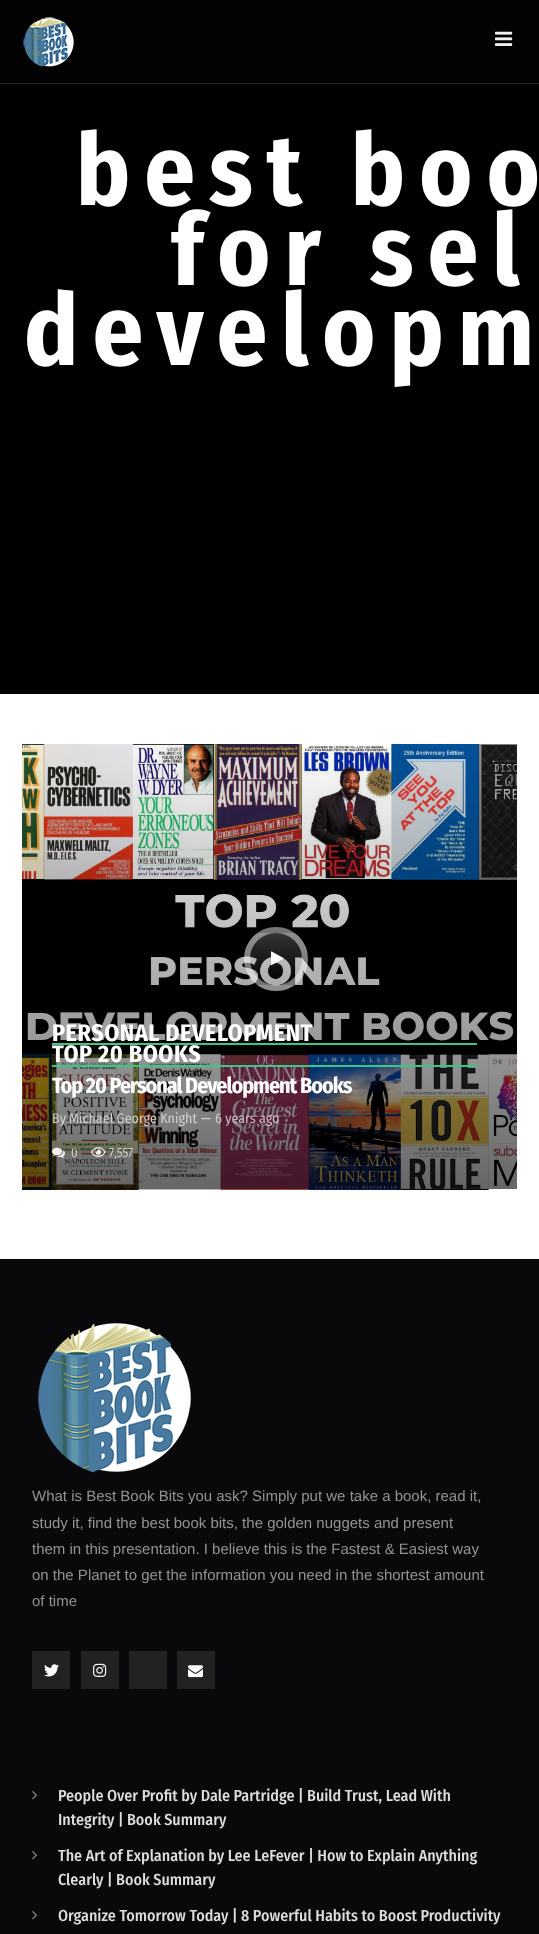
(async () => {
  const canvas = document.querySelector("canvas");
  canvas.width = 539;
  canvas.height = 1934;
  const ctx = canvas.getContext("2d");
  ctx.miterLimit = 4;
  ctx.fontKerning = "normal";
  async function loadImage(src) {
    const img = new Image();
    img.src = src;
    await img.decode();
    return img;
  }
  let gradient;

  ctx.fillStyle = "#ffffff";
  ctx.fillRect(0, 0, 539, 1934);
  ctx.fillStyle = "#020202";
  ctx.fillRect(0, 0, 539, 83);
  ctx.drawImage(await loadImage("img/1.png"), 23, 17, 51, 50);
  ctx.drawImage(await loadImage("img/2.png"), 495, 31, 18, 15);
  ctx.fillStyle = "#262626";
  ctx.fillRect(0, 83, 539, 1);
  ctx.fillStyle = "#000000";
  ctx.fillRect(0, 84, 539, 610);
  ctx.drawImage(await loadImage("img/3.png"), 22, 744, 495, 446);
  ctx.save();
  ctx.beginPath();
  ctx.roundRect(244, 927, 64, 64, 32);
  ctx.clip();
  gradient = ctx.createLinearGradient(276, 881, 276, 933);
  gradient.addColorStop(0, "#333333");
  gradient.addColorStop(1, "#000000");
  ctx.fillStyle = gradient;
  ctx.fillRect(257, 927, 38, 6);
  ctx.restore();
  ctx.beginPath();
  ctx.arc(276, 959, 29, 0, Math.PI * 2);
  ctx.strokeStyle = "rgba(255, 255, 255, 0.45)";
  ctx.lineWidth = 6;
  ctx.stroke();
  ctx.drawImage(await loadImage("img/4.png"), 271, 951, 13, 15);
  ctx.fillStyle = "#39c686";
  ctx.fillRect(52, 1043, 425, 2);
  ctx.fillRect(52, 1065, 425, 2);
  ctx.drawImage(await loadImage("img/5.png"), 52, 1147, 13, 11);
  ctx.drawImage(await loadImage("img/6.png"), 91, 1147, 15, 10);
  ctx.fillStyle = "#09090c";
  ctx.fillRect(0, 1259, 539, 675);
  ctx.drawImage(await loadImage("img/7.png"), 38, 1323, 153, 150);
  ctx.fillStyle = "#222222";
  ctx.fillRect(32, 1651, 38, 38);
  ctx.drawImage(await loadImage("img/8.png"), 44, 1664, 15, 13);
  ctx.fillRect(81, 1651, 38, 38);
  ctx.drawImage(await loadImage("img/9.png"), 93, 1663, 14, 14);
  ctx.fillRect(129, 1651, 38, 38);
  ctx.fillRect(177, 1651, 38, 38);
  ctx.drawImage(await loadImage("img/10.png"), 188, 1665, 15, 13);
  ctx.drawImage(await loadImage("img/11.png"), 32, 1791, 5, 9);
  ctx.drawImage(await loadImage("img/11.png"), 32, 1851, 5, 9);
  ctx.drawImage(await loadImage("img/11.png"), 32, 1911, 5, 9);
  ctx.letterSpacing = "14px";
  ctx.font = "bold 100px Fira Sans Condensed";
  ctx.fillStyle = "#ffffff";
  for (const [text, x, y] of [
    ["best boo", 76, 205],
    ["for sel", 171, 285],
    ["developm", 24, 365],
  ]) {
    ctx.fillText(text, x, y);
  }
  ctx.letterSpacing = "0.5px";
  ctx.font = "bold 24px Fira Sans Condensed";
  ctx.fillText("PERSONAL DEVELOPMENT", 52, 1041);
  ctx.fillText("TOP 20 BOOKS", 52, 1062);
  ctx.letterSpacing = "-1px";
  ctx.font = "bold 22px Fira Sans Condensed";
  ctx.fillText("Top 20 Personal Development Books", 52, 1093);
  ctx.letterSpacing = "0px";
  ctx.font = "14px Fira Sans Condensed";
  ctx.fillStyle = "#d0d0cc";
  ctx.fillText("By", 52, 1123);
  ctx.fillText("Michael George Knight", 69, 1123);
  ctx.fillStyle = "#dddddd";
  ctx.fillText("—", 201, 1123);
  ctx.fillStyle = "#cfc3c8";
  ctx.fillText("6 years ago", 215, 1123);
  ctx.font = "300 13px Fira Sans Condensed";
  ctx.fillStyle = "#eff0ee";
  ctx.fillText("0", 71, 1157);
  ctx.fillText("7,557", 109, 1157);
  ctx.font = "15px Arimo";
  ctx.fillStyle = "#939394";
  for (const [text, x, y] of [
    ["What is Best Book Bits you ask? Simply put we take a book, read it,", 32, 1501],
    ["study it, find the best book bits, the golden nuggets and present", 32, 1528],
    ["them in this presentation. I believe this is the Fastest & Easiest way", 32, 1554],
    ["on the Planet to get the information you need in the shortest amount", 32, 1580],
    ["of time", 32, 1606],
  ]) {
    ctx.fillText(text, x, y);
  }
  ctx.font = "500 16px Fira Sans Condensed";
  ctx.fillStyle = "#dddddd";
  for (const [text, x, y] of [
    ["People Over Profit by Dale Partridge | Build Trust, Lead With", 58, 1801],
    ["Integrity | Book Summary", 58, 1825],
    ["The Art of Explanation by Lee LeFever | How to Explain Anything", 58, 1861],
    ["Clearly | Book Summary", 58, 1885],
    ["Organize Tomorrow Today | 8 Powerful Habits to Boost Productivity", 58, 1921],
  ]) {
    ctx.fillText(text, x, y);
  }
})();
